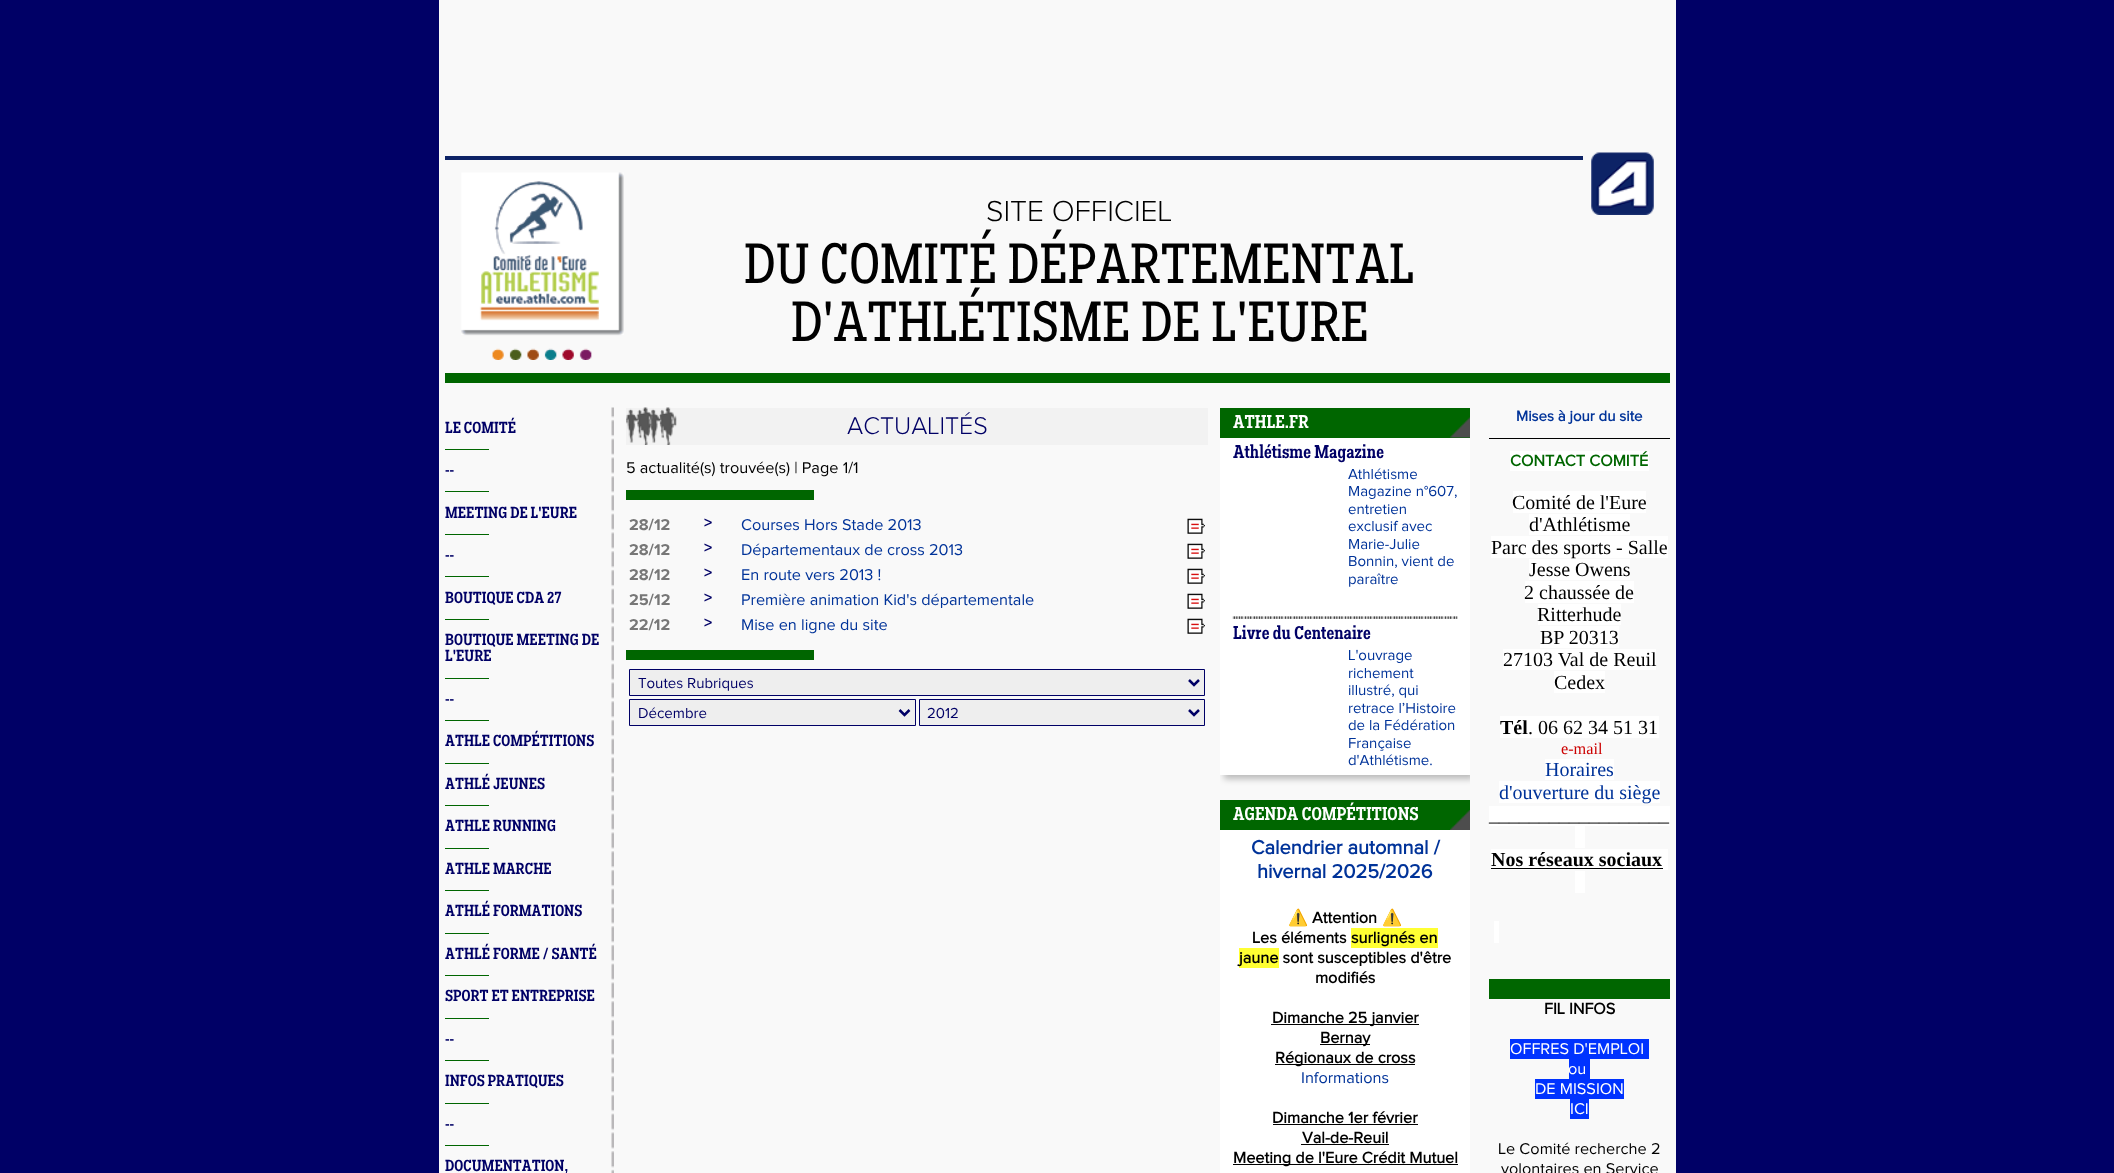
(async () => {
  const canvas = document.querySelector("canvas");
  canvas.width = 2114;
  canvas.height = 1173;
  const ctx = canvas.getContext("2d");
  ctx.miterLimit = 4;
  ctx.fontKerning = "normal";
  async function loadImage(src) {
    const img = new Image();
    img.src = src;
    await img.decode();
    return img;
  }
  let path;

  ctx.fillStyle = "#000066";
  ctx.fillRect(0, 0, 2114, 1173);
  ctx.fillStyle = "#f9f9f9";
  ctx.fillRect(439, 0, 1237, 1173);
  ctx.fillStyle = "#0d2366";
  ctx.fillRect(445, 156, 1138, 4);
  ctx.drawImage(await loadImage("img/1.png"), 1591, 152, 63, 63);
  ctx.drawImage(await loadImage("img/2.png"), 461, 172, 163, 188);
  ctx.fillStyle = "#006600";
  ctx.fillRect(445, 373, 1225, 10);
  ctx.drawImage(await loadImage("img/3.png"), 611, 407, 3, 766);
  for (const [x, y, w, h, color] of [
    [445, 449, 44, 1, "#006600"],
    [445, 491, 44, 1, "#006600"],
    [445, 534, 44, 1, "#006600"],
    [445, 576, 44, 1, "#006600"],
    [445, 619, 44, 1, "#006600"],
    [445, 678, 44, 1, "#006600"],
    [445, 720, 44, 1, "#006600"],
    [445, 763, 44, 1, "#006600"],
    [445, 805, 44, 1, "#006600"],
    [445, 848, 44, 1, "#006600"],
    [445, 890, 44, 1, "#006600"],
    [445, 933, 44, 1, "#006600"],
    [445, 975, 44, 1, "#006600"],
    [445, 1018, 44, 1, "#006600"],
    [445, 1060, 44, 1, "#006600"],
    [445, 1103, 44, 1, "#006600"],
    [445, 1145, 44, 1, "#006600"],
    [626, 408, 582, 37, "#f2f2f2"],
  ]) {
    ctx.fillStyle = color;
    ctx.fillRect(x, y, w, h);
  }
  ctx.drawImage(await loadImage("img/4.png"), 626, 407, 51, 38);
  ctx.fillStyle = "#006600";
  ctx.fillRect(626, 490, 188, 10);
  ctx.drawImage(await loadImage("img/5.png"), 1187, 518, 18, 16);
  ctx.drawImage(await loadImage("img/5.png"), 1187, 543, 18, 16);
  ctx.drawImage(await loadImage("img/5.png"), 1187, 568, 18, 16);
  ctx.drawImage(await loadImage("img/5.png"), 1187, 593, 18, 16);
  ctx.drawImage(await loadImage("img/5.png"), 1187, 618, 18, 16);
  ctx.fillRect(626, 650, 188, 10);
  ctx.fillStyle = "#eeeeee";
  ctx.beginPath();
  ctx.rect(629.5, 669.5, 575, 26);
  ctx.fill();
  ctx.strokeStyle = "#000066";
  ctx.stroke();
  path = new Path2D("M1189 680L1194 685L1199 680");
  ctx.lineWidth = 2.5;
  ctx.stroke(path);
  ctx.beginPath();
  ctx.rect(629.5, 699.5, 286, 26);
  ctx.fill();
  ctx.lineWidth = 1;
  ctx.stroke();
  path = new Path2D("M899.5 710L904.5 715L909.5 710");
  ctx.lineWidth = 2.5;
  ctx.stroke(path);
  ctx.beginPath();
  ctx.rect(919.5, 699.5, 285, 26);
  ctx.fill();
  ctx.lineWidth = 1;
  ctx.stroke();
  path = new Path2D("M1189 710L1194 715L1199 710");
  ctx.lineWidth = 2.5;
  ctx.stroke(path);
  ctx.save();
  ctx.beginPath();
  ctx.rect(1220, 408, 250, 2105);
  ctx.clip();
  ctx.fillStyle = "rgba(0, 0, 0, 0.25)";
  ctx.filter = "blur(3px)";
  ctx.beginPath();
  ctx.rect(1224, 411, 250, 368);
  ctx.fill();
  ctx.filter = "none";
  ctx.restore();
  ctx.fillStyle = "#ffffff";
  ctx.fillRect(1220, 438, 250, 337);
  ctx.fillStyle = "#006600";
  ctx.fillRect(1220, 408, 250, 30);
  ctx.drawImage(await loadImage("img/6.png"), 1450, 417, 20, 21);
  ctx.drawImage(await loadImage("img/7.png"), 1232, 616, 226, 3);
  ctx.fillStyle = "#ffffff";
  ctx.fillRect(1220, 830, 250, 343);
  ctx.fillStyle = "#006600";
  ctx.fillRect(1220, 800, 250, 30);
  ctx.drawImage(await loadImage("img/8.png"), 1450, 810, 20, 20);
  for (const [x, y, w, h, color] of [
    [1351, 928, 87, 20, "#ffff33"],
    [1239, 948, 40, 20, "#ffff33"],
    [1271, 1024, 148, 1, "#000000"],
    [1320, 1044, 50, 1, "#000000"],
    [1275, 1064, 140, 1, "#000000"],
    [1273, 1124, 145, 1, "#000000"],
    [1301, 1144, 88, 1, "#000000"],
    [1233, 1164, 225, 1, "#000000"],
    [1489, 438, 181, 1, "#000000"],
    [1510, 451, 139, 20, "#ffffff"],
    [1513, 491, 133, 22, "#ffffff"],
    [1529, 514, 101, 21, "#ffffff"],
    [1491, 536, 177, 22, "#ffffff"],
    [1529, 559, 101, 21, "#ffffff"],
    [1525, 581, 109, 22, "#ffffff"],
    [1538, 604, 83, 21, "#ffffff"],
    [1540, 626, 79, 22, "#ffffff"],
    [1503, 649, 153, 21, "#ffffff"],
    [1554, 671, 51, 22, "#ffffff"],
    [1500, 716, 159, 22, "#ffffff"],
    [1545, 759, 69, 21, "#ffffff"],
    [1499, 781, 161, 22, "#ffffff"],
    [1489, 806, 181, 20, "#ffffff"],
    [1575, 826, 10, 22, "#ffffff"],
    [1491, 849, 177, 21, "#ffffff"],
    [1491, 868, 172, 1, "#000000"],
    [1575, 871, 10, 22, "#ffffff"],
    [1494, 921, 5, 22, "#ffffff"],
    [1489, 979, 181, 20, "#006600"],
    [1510, 1039, 139, 20, "#0033ff"],
    [1569, 1059, 21, 20, "#0033ff"],
    [1535, 1079, 89, 20, "#0033ff"],
    [1570, 1099, 19, 20, "#0033ff"],
  ]) {
    ctx.fillStyle = color;
    ctx.fillRect(x, y, w, h);
  }
  ctx.font = "300 30px Proxima Nova";
  ctx.fillStyle = "#000000";
  ctx.fillText("SITE OFFICIEL", 986, 221);
  ctx.font = "57.5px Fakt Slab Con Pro";
  ctx.fillText("DU COMITÉ DÉPARTEMENTAL", 744, 283);
  ctx.fillText("D'ATHLÉTISME DE L'EURE", 791, 341);
  ctx.font = "600 16.25px Fakt Slab Con Pro";
  ctx.fillStyle = "#000066";
  for (const [text, x, y] of [
    ["LE COMITÉ", 445, 433],
    ["--", 445, 475],
    ["MEETING DE L'EURE", 445, 518],
    ["--", 445, 560],
    ["BOUTIQUE CDA 27", 445, 603],
    ["BOUTIQUE MEETING DE", 445, 645],
    ["L'EURE", 445, 661],
    ["--", 445, 704],
    ["ATHLE COMPÉTITIONS", 445, 746],
    ["ATHLÉ JEUNES", 445, 789],
    ["ATHLE RUNNING", 445, 831],
    ["ATHLE MARCHE", 445, 874],
    ["ATHLÉ FORMATIONS", 445, 916],
    ["ATHLÉ FORME / SANTÉ", 445, 959],
    ["SPORT ET ENTREPRISE", 445, 1001],
    ["--", 445, 1044],
    ["INFOS PRATIQUES", 445, 1086],
    ["--", 445, 1129],
    ["DOCUMENTATION,", 445, 1171],
  ]) {
    ctx.fillText(text, x, y);
  }
  ctx.font = "300 25px Proxima Nova";
  ctx.fillText("ACTUALITÉS", 847, 434);
  ctx.font = "16.25px Proxima Nova";
  ctx.fillStyle = "#000000";
  ctx.fillText("5 actualité(s) trouvée(s) | Page 1/1", 626, 473);
  ctx.font = "bold 16.25px Proxima Nova";
  ctx.fillStyle = "#777777";
  ctx.fillText("28/12", 629, 530);
  ctx.fillStyle = "#000066";
  ctx.fillText(">", 704, 528);
  ctx.font = "16.25px Proxima Nova";
  ctx.fillStyle = "#003399";
  ctx.fillText("Courses Hors Stade 2013", 741, 530);
  ctx.font = "bold 16.25px Proxima Nova";
  ctx.fillStyle = "#777777";
  ctx.fillText("28/12", 629, 555);
  ctx.fillStyle = "#000066";
  ctx.fillText(">", 704, 553);
  ctx.font = "16.25px Proxima Nova";
  ctx.fillStyle = "#003399";
  ctx.fillText("Départementaux de cross 2013", 741, 555);
  ctx.font = "bold 16.25px Proxima Nova";
  ctx.fillStyle = "#777777";
  ctx.fillText("28/12", 629, 580);
  ctx.fillStyle = "#000066";
  ctx.fillText(">", 704, 578);
  ctx.font = "16.25px Proxima Nova";
  ctx.fillStyle = "#003399";
  ctx.fillText("En route vers 2013 !", 741, 580);
  ctx.font = "bold 16.25px Proxima Nova";
  ctx.fillStyle = "#777777";
  ctx.fillText("25/12", 629, 605);
  ctx.fillStyle = "#000066";
  ctx.fillText(">", 704, 603);
  ctx.font = "16.25px Proxima Nova";
  ctx.fillStyle = "#003399";
  ctx.fillText("Première animation Kid's départementale", 741, 605);
  ctx.font = "bold 16.25px Proxima Nova";
  ctx.fillStyle = "#777777";
  ctx.fillText("22/12", 629, 630);
  ctx.fillStyle = "#000066";
  ctx.fillText(">", 704, 628);
  ctx.font = "16.25px Proxima Nova";
  ctx.fillStyle = "#003399";
  ctx.fillText("Mise en ligne du site", 741, 630);
  ctx.font = "15px Proxima Nova";
  ctx.fillStyle = "#000066";
  for (const [text, x, y] of [
    ["Toutes Rubriques", 638, 688],
    ["Décembre", 638, 718],
    ["2012", 927, 718],
  ]) {
    ctx.fillText(text, x, y);
  }
  ctx.font = "600 18.75px Fakt Slab Con Pro";
  ctx.fillStyle = "#ffffff";
  ctx.fillText("ATHLE.FR", 1233, 428);
  ctx.fillStyle = "#000066";
  ctx.fillText("Athlétisme Magazine", 1233, 458);
  ctx.font = "15px Proxima Nova";
  ctx.fillStyle = "#003399";
  for (const [text, x, y] of [
    ["Athlétisme", 1348, 479],
    ["Magazine n°607,", 1348, 496],
    ["entretien", 1348, 514],
    ["exclusif avec", 1348, 531],
    ["Marie-Julie", 1348, 549],
    ["Bonnin, vient de", 1348, 566],
    ["paraître", 1348, 584],
  ]) {
    ctx.fillText(text, x, y);
  }
  ctx.font = "600 18.75px Fakt Slab Con Pro";
  ctx.fillStyle = "#000066";
  ctx.fillText("Livre du Centenaire", 1233, 639);
  ctx.font = "15px Proxima Nova";
  ctx.fillStyle = "#003399";
  for (const [text, x, y] of [
    ["L'ouvrage", 1348, 660],
    ["richement", 1348, 678],
    ["illustré, qui", 1348, 695],
    ["retrace l’Histoire", 1348, 713],
    ["de la Fédération", 1348, 730],
    ["Française", 1348, 748],
    ["d'Athlétisme.", 1348, 765],
  ]) {
    ctx.fillText(text, x, y);
  }
  ctx.font = "600 18.75px Fakt Slab Con Pro";
  ctx.fillStyle = "#ffffff";
  ctx.fillText("AGENDA COMPÉTITIONS", 1233, 820);
  ctx.font = "bold 20px 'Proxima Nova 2'";
  ctx.fillStyle = "#003399";
  ctx.fillText("Calendrier automnal /", 1251, 854);
  ctx.fillText("hivernal 2025/2026", 1257, 878);
  ctx.font = "bold 16.25px Noto Color Emoji";
  ctx.fillStyle = "#000000";
  ctx.fillText("⚠️", 1288, 923);
  ctx.font = "bold 16.25px 'Proxima Nova 2'";
  ctx.fillText("Attention", 1312, 923);
  ctx.font = "bold 16.25px Noto Color Emoji";
  ctx.fillText("⚠️", 1382, 923);
  ctx.font = "bold 16.25px 'Proxima Nova 2'";
  for (const [text, x, y] of [
    ["Les éléments", 1252, 943],
    ["surlignés en", 1351, 943],
    ["jaune sont susceptibles d'être", 1239, 963],
    ["modifiés", 1315, 983],
    ["Dimanche 25 janvier", 1272, 1023],
    ["Bernay", 1320, 1043],
    ["Régionaux de cross", 1275, 1063],
  ]) {
    ctx.fillText(text, x, y);
  }
  ctx.font = "16.25px Proxima Nova";
  ctx.fillStyle = "#003399";
  ctx.fillText("Informations", 1301, 1083);
  ctx.font = "bold 16.25px 'Proxima Nova 2'";
  ctx.fillStyle = "#000000";
  for (const [text, x, y] of [
    ["Dimanche 1er février", 1272, 1123],
    ["Val-de-Reuil", 1302, 1143],
    ["Meeting de l'Eure Crédit Mutuel", 1233, 1163],
  ]) {
    ctx.fillText(text, x, y);
  }
  ctx.font = "bold 15px 'Proxima Nova 2'";
  ctx.fillStyle = "#003399";
  ctx.fillText("Mises à jour du site", 1516, 421);
  ctx.font = "bold 16.25px 'Proxima Nova 2'";
  ctx.fillStyle = "#006600";
  ctx.fillText("CONTACT COMITÉ", 1510, 466);
  ctx.font = "20px Liberation Serif";
  ctx.fillStyle = "#000000";
  for (const [text, x, y] of [
    ["Comité de l'Eure", 1512, 509],
    ["d'Athlétisme", 1529, 531],
    ["Parc des sports - Salle", 1491, 554],
    ["Jesse Owens", 1529, 576],
    ["2 chaussée de", 1524, 599],
    ["Ritterhude", 1537, 621],
    ["BP 20313", 1540, 644],
    ["27103 Val de Reuil", 1503, 666],
    ["Cedex", 1554, 689],
  ]) {
    ctx.fillText(text, x, y);
  }
  ctx.font = "bold 20px Liberation Serif";
  ctx.fillText("Tél", 1500, 734);
  ctx.font = "20px Liberation Serif";
  ctx.fillText(". 06 62 34 51 31", 1528, 734);
  ctx.font = "16.25px Liberation Serif";
  ctx.fillStyle = "#cc0000";
  ctx.fillText("e-mail", 1561, 754);
  ctx.font = "20px Liberation Serif";
  ctx.fillStyle = "#003399";
  ctx.fillText("Horaires", 1545, 776);
  ctx.fillText("d'ouverture du siège", 1499, 799);
  ctx.fillStyle = "#000000";
  ctx.fillText("__________________", 1489, 821);
  ctx.font = "bold 20px Liberation Serif";
  ctx.fillText("Nos réseaux sociaux", 1491, 866);
  ctx.font = "bold 16.25px 'Proxima Nova 2'";
  ctx.fillText("FIL INFOS", 1544, 1014);
  ctx.font = "16.25px Proxima Nova";
  ctx.fillStyle = "#ffffff";
  for (const [text, x, y] of [
    ["OFFRES D'EMPLOI", 1510, 1054],
    ["ou", 1568, 1074],
    ["DE MISSION", 1535, 1094],
    ["ICI", 1570, 1114],
  ]) {
    ctx.fillText(text, x, y);
  }
  ctx.fillStyle = "#000000";
  ctx.fillText("Le Comité recherche 2", 1498, 1154);
  ctx.fillText("volontaires en Service", 1501, 1174);
})();
